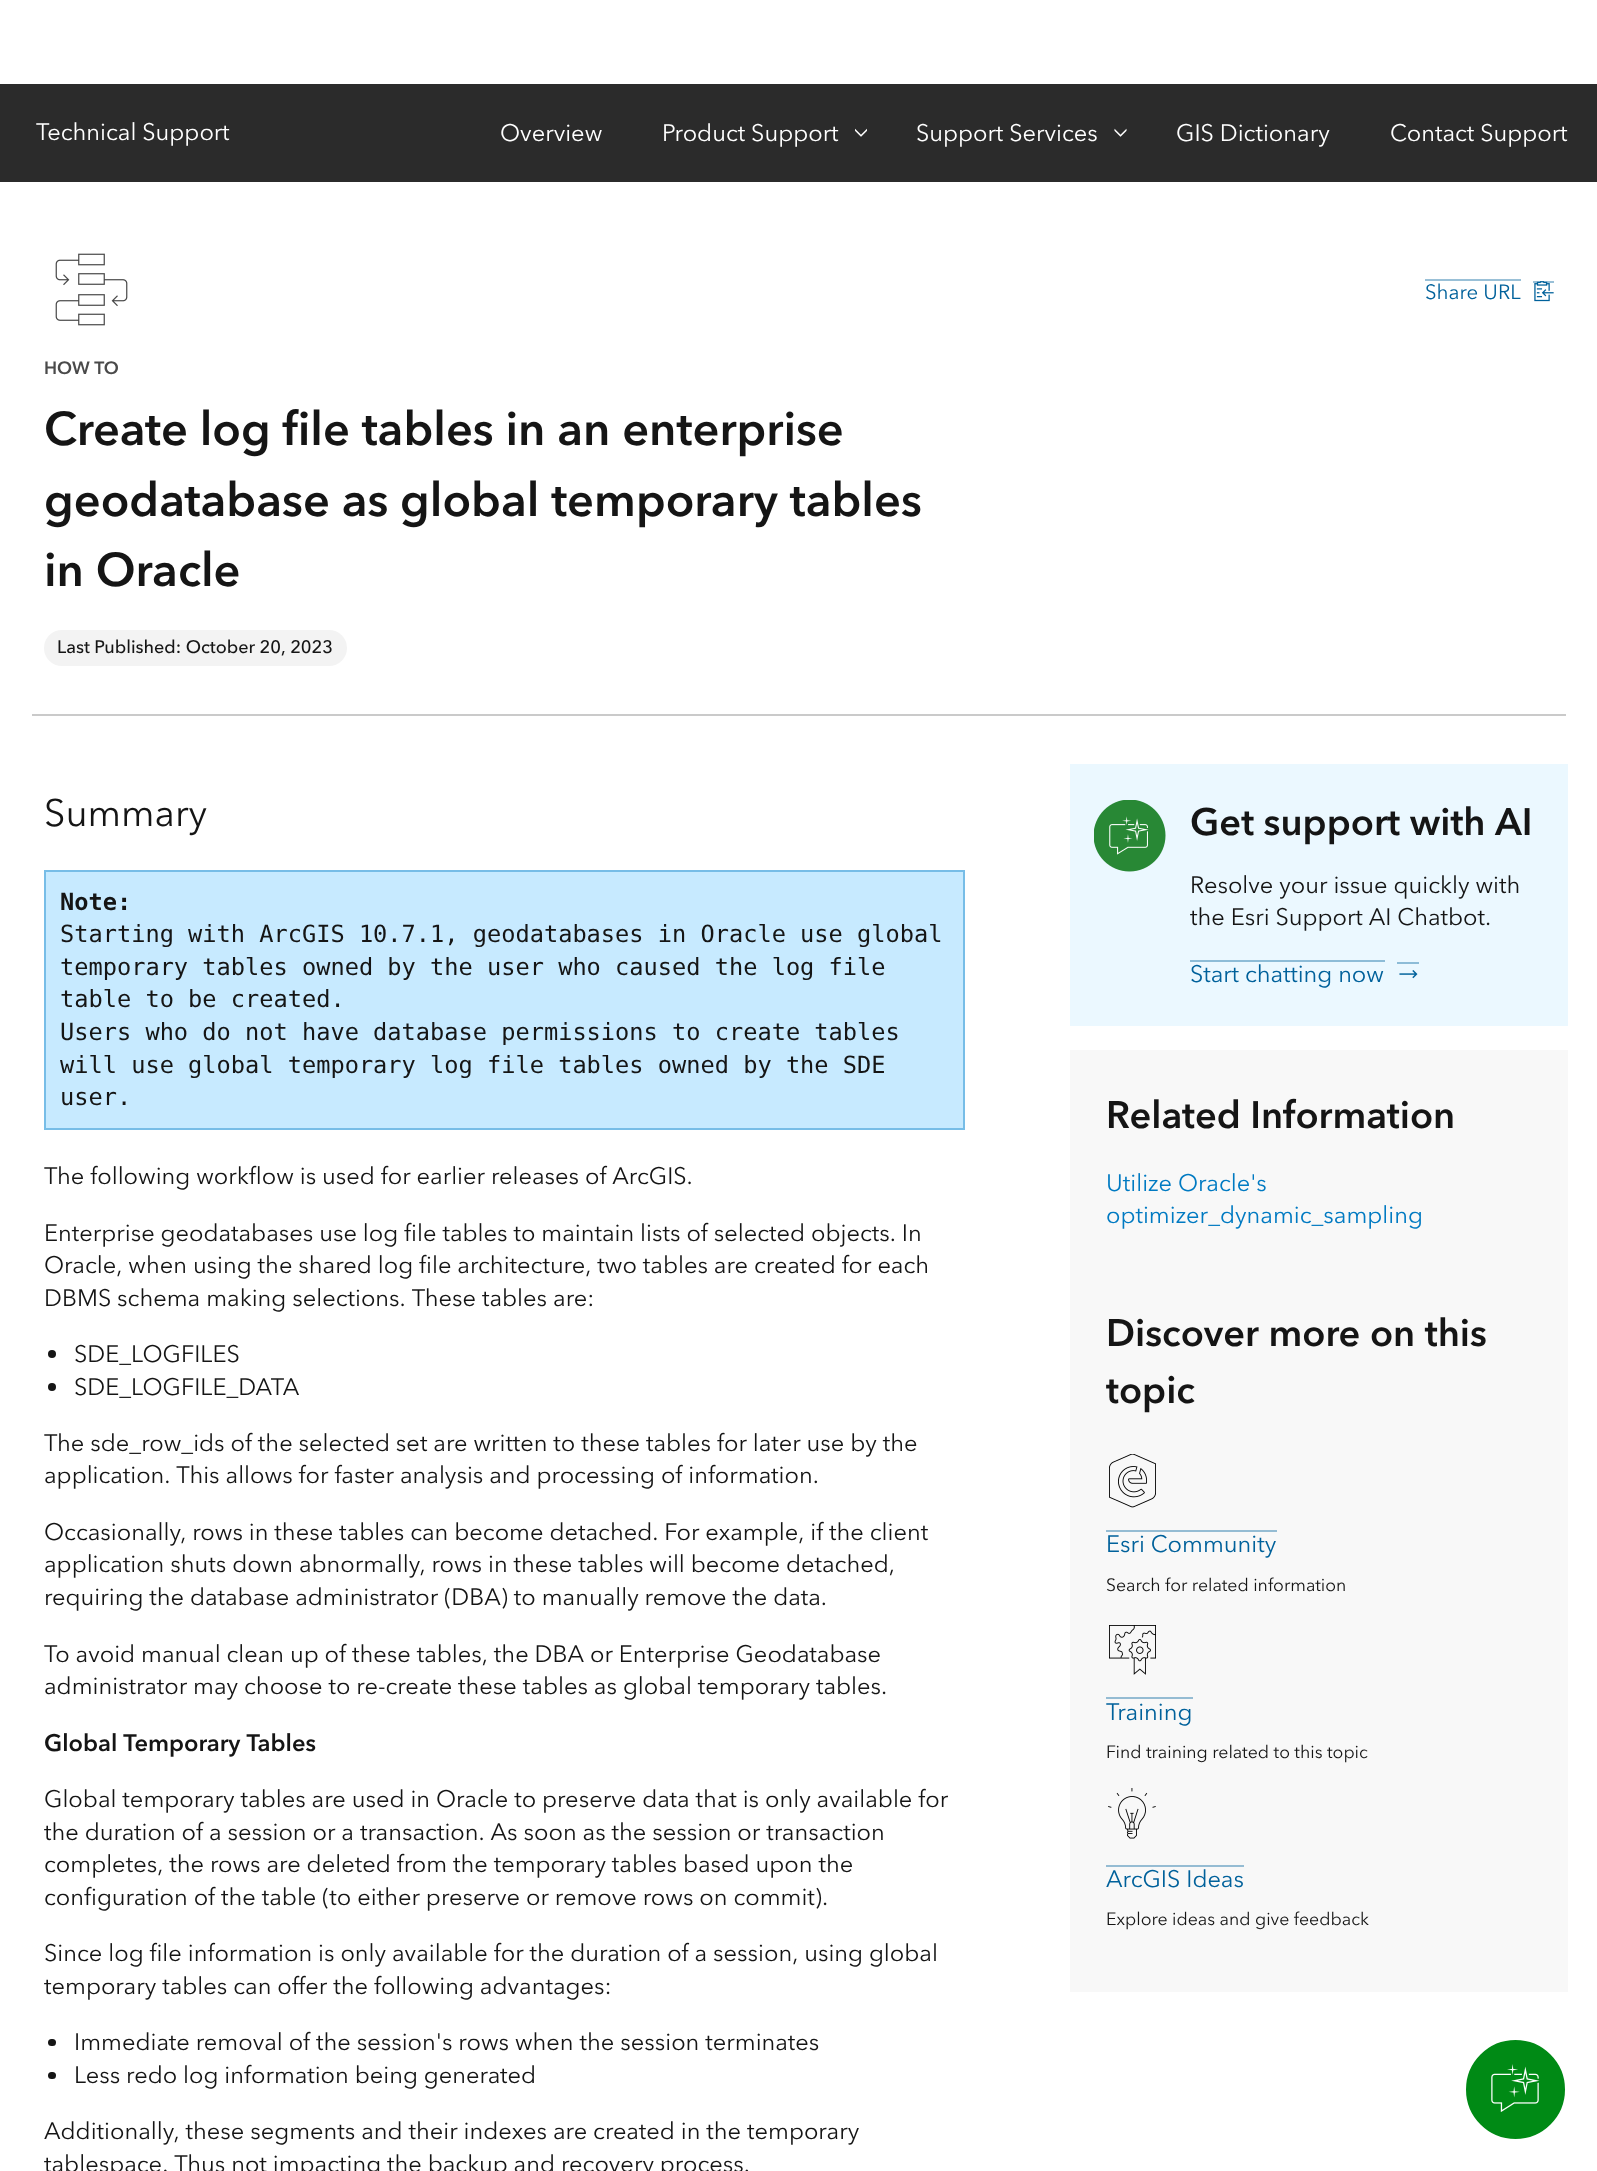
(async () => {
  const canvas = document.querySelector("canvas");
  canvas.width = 1597;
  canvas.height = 2171;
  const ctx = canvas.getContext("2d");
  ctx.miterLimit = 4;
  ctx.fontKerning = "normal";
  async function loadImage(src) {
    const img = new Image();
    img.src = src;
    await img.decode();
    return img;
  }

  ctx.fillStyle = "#ffffff";
  ctx.fillRect(0, 0, 1597, 2171);
  ctx.fillStyle = "#2b2b2b";
  ctx.fillRect(0, 84, 1597, 98);
  ctx.drawImage(await loadImage("img/1.png"), 855, 128, 12, 9);
  ctx.drawImage(await loadImage("img/2.png"), 1114, 128, 13, 9);
  ctx.drawImage(await loadImage("img/3.png"), 55, 253, 73, 73);
  ctx.fillStyle = "#99c0d7";
  ctx.fillRect(1425, 279, 96, 2);
  ctx.fillRect(1533, 281, 21, 2);
  ctx.drawImage(await loadImage("img/4.png"), 1534, 281, 20, 21);
  ctx.fillStyle = "#cacaca";
  ctx.fillRect(32, 714, 1534, 2);
  ctx.fillStyle = "#f3f3f3";
  ctx.beginPath();
  ctx.roundRect(44, 630, 303, 36, 18);
  ctx.fill();
  ctx.fillStyle = "#c7eaff";
  ctx.beginPath();
  ctx.rect(45, 871, 919, 258);
  ctx.fill();
  ctx.strokeStyle = "#77bde7";
  ctx.lineWidth = 2;
  ctx.stroke();
  ctx.fillStyle = "#151515";
  ctx.beginPath();
  ctx.arc(52, 1354, 4, 0, Math.PI * 2);
  ctx.fill();
  ctx.beginPath();
  ctx.arc(52, 1387, 4, 0, Math.PI * 2);
  ctx.fill();
  ctx.beginPath();
  ctx.roundRect(48, 2039, 8, 7, 3.5);
  ctx.fill();
  ctx.beginPath();
  ctx.roundRect(48, 2072, 8, 7, 3.5);
  ctx.fill();
  ctx.fillStyle = "#ebf8ff";
  ctx.fillRect(1070, 764, 498, 262);
  ctx.drawImage(await loadImage("img/5.png"), 1094, 800, 72, 72);
  ctx.fillStyle = "#8dbcd7";
  ctx.fillRect(1190, 960, 195, 2);
  ctx.fillRect(1397, 962, 22, 2);
  ctx.drawImage(await loadImage("img/6.png"), 1399, 970, 19, 9);
  ctx.fillStyle = "#f8f8f8";
  ctx.fillRect(1070, 1050, 498, 942);
  ctx.drawImage(await loadImage("img/7.png"), 1109, 1454, 47, 54);
  ctx.fillStyle = "#95bcd3";
  ctx.fillRect(1106, 1530, 171, 2);
  ctx.drawImage(await loadImage("img/8.png"), 1109, 1625, 47, 50);
  ctx.fillRect(1106, 1697, 87, 2);
  ctx.drawImage(await loadImage("img/9.png"), 1108, 1788, 48, 51);
  ctx.fillRect(1106, 1865, 138, 2);
  ctx.fillStyle = "#008a15";
  ctx.beginPath();
  ctx.arc(1515.5, 2089.5, 51, 0, Math.PI * 2);
  ctx.fill();
  ctx.strokeStyle = "#ffffff";
  ctx.lineWidth = 3;
  ctx.stroke();
  ctx.drawImage(await loadImage("img/10.png"), 1491, 2064, 49, 48);
  ctx.font = "23.65px Avenir Next";
  ctx.fillStyle = "#ffffff";
  for (const [text, x, y] of [
    ["Technical Support", 36, 140],
    ["Overview", 500, 141],
    ["Product Support", 662, 141],
    ["Support Services", 916, 141],
    ["GIS Dictionary", 1176, 141],
    ["Contact Support", 1390, 141],
  ]) {
    ctx.fillText(text, x, y);
  }
  ctx.font = "20.5px Avenir Next";
  ctx.fillStyle = "#00619b";
  ctx.fillText("Share URL", 1425, 299);
  ctx.font = "bold 17.7px Avenir Next";
  ctx.fillStyle = "#4a4a4a";
  ctx.fillText("HOW TO", 44, 374);
  ctx.font = "bold 47px Avenir Next";
  ctx.fillStyle = "#151515";
  for (const [text, x, y] of [
    ["Create log file tables in an enterprise", 44, 445],
    ["geodatabase as global temporary tables", 44, 516],
    ["in Oracle", 44, 586],
  ]) {
    ctx.fillText(text, x, y);
  }
  ctx.font = "500 18px Avenir Next";
  ctx.fillText("Last Published: October 20, 2023", 57, 653);
  ctx.font = "38px Avenir Next";
  ctx.fillText("Summary", 44, 826);
  ctx.font = "bold 23.65px DejaVu Sans Mono";
  ctx.fillText("Note:", 60, 910);
  ctx.font = "23.65px DejaVu Sans Mono";
  for (const [text, x, y] of [
    ["Starting with ArcGIS 10.7.1, geodatabases in Oracle use global", 60, 942],
    ["temporary tables owned by the user who caused the log file", 60, 975],
    ["table to be created.", 60, 1007],
    ["Users who do not have database permissions to create tables", 60, 1040],
    ["will use global temporary log file tables owned by the SDE", 60, 1073],
    ["user.", 60, 1105],
  ]) {
    ctx.fillText(text, x, y);
  }
  ctx.font = "23.65px Avenir Next";
  for (const [text, x, y] of [
    ["The following workflow is used for earlier releases of ArcGIS.", 44, 1184],
    ["Enterprise geodatabases use log file tables to maintain lists of selected objects. In", 44, 1241],
    ["Oracle, when using the shared log file architecture, two tables are created for each", 44, 1273],
    ["DBMS schema making selections. These tables are:", 44, 1306],
    ["SDE_LOGFILES", 74, 1362],
    ["SDE_LOGFILE_DATA", 74, 1395],
    ["The sde_row_ids of the selected set are written to these tables for later use by the", 44, 1451],
    ["application. This allows for faster analysis and processing of information.", 44, 1483],
    ["Occasionally, rows in these tables can become detached. For example, if the client", 44, 1540],
    ["application shuts down abnormally, rows in these tables will become detached,", 44, 1572],
    ["requiring the database administrator (DBA) to manually remove the data.", 44, 1605],
    ["To avoid manual clean up of these tables, the DBA or Enterprise Geodatabase", 44, 1662],
    ["administrator may choose to re-create these tables as global temporary tables.", 44, 1694],
  ]) {
    ctx.fillText(text, x, y);
  }
  ctx.font = "bold 23.65px Avenir Next";
  ctx.fillText("Global Temporary Tables", 44, 1751);
  ctx.font = "23.65px Avenir Next";
  for (const [text, x, y] of [
    ["Global temporary tables are used in Oracle to preserve data that is only available for", 44, 1807],
    ["the duration of a session or a transaction. As soon as the session or transaction", 44, 1840],
    ["completes, the rows are deleted from the temporary tables based upon the", 44, 1872],
    ["configuration of the table (to either preserve or remove rows on commit).", 44, 1905],
    ["Since log file information is only available for the duration of a session, using global", 44, 1961],
    ["temporary tables can offer the following advantages:", 44, 1994],
    ["Immediate removal of the session's rows when the session terminates", 74, 2050],
    ["Less redo log information being generated", 74, 2083],
    ["Additionally, these segments and their indexes are created in the temporary", 44, 2139],
    ["tablespace. Thus not impacting the backup and recovery process.", 44, 2172],
  ]) {
    ctx.fillText(text, x, y);
  }
  ctx.font = "bold 38px Avenir Next";
  ctx.fillText("Get support with AI", 1190, 835);
  ctx.font = "23.65px Avenir Next";
  ctx.fillText("Resolve your issue quickly with", 1190, 893);
  ctx.fillText("the Esri Support AI Chatbot.", 1190, 925);
  ctx.fillStyle = "#00619b";
  ctx.fillText("Start chatting now", 1190, 982);
  ctx.font = "bold 38px Avenir Next";
  ctx.fillStyle = "#151515";
  ctx.fillText("Related Information", 1106, 1128);
  ctx.font = "23.65px Avenir Next";
  ctx.fillStyle = "#007ac2";
  ctx.fillText("Utilize Oracle's", 1106, 1191);
  ctx.fillText("optimizer_dynamic_sampling", 1106, 1223);
  ctx.font = "bold 38px Avenir Next";
  ctx.fillStyle = "#151515";
  ctx.fillText("Discover more on this", 1106, 1346);
  ctx.fillText("topic", 1106, 1403);
  ctx.font = "23.65px Avenir Next";
  ctx.fillStyle = "#00619b";
  ctx.fillText("Esri Community", 1106, 1552);
  ctx.font = "17.7px Avenir Next";
  ctx.fillStyle = "#151515";
  ctx.fillText("Search for related information", 1106, 1591);
  ctx.font = "23.65px Avenir Next";
  ctx.fillStyle = "#00619b";
  ctx.fillText("Training", 1106, 1720);
  ctx.font = "17.7px Avenir Next";
  ctx.fillStyle = "#151515";
  ctx.fillText("Find training related to this topic", 1106, 1758);
  ctx.font = "23.65px Avenir Next";
  ctx.fillStyle = "#00619b";
  ctx.fillText("ArcGIS Ideas", 1106, 1887);
  ctx.font = "17.7px Avenir Next";
  ctx.fillStyle = "#151515";
  ctx.fillText("Explore ideas and give feedback", 1106, 1925);
})();
